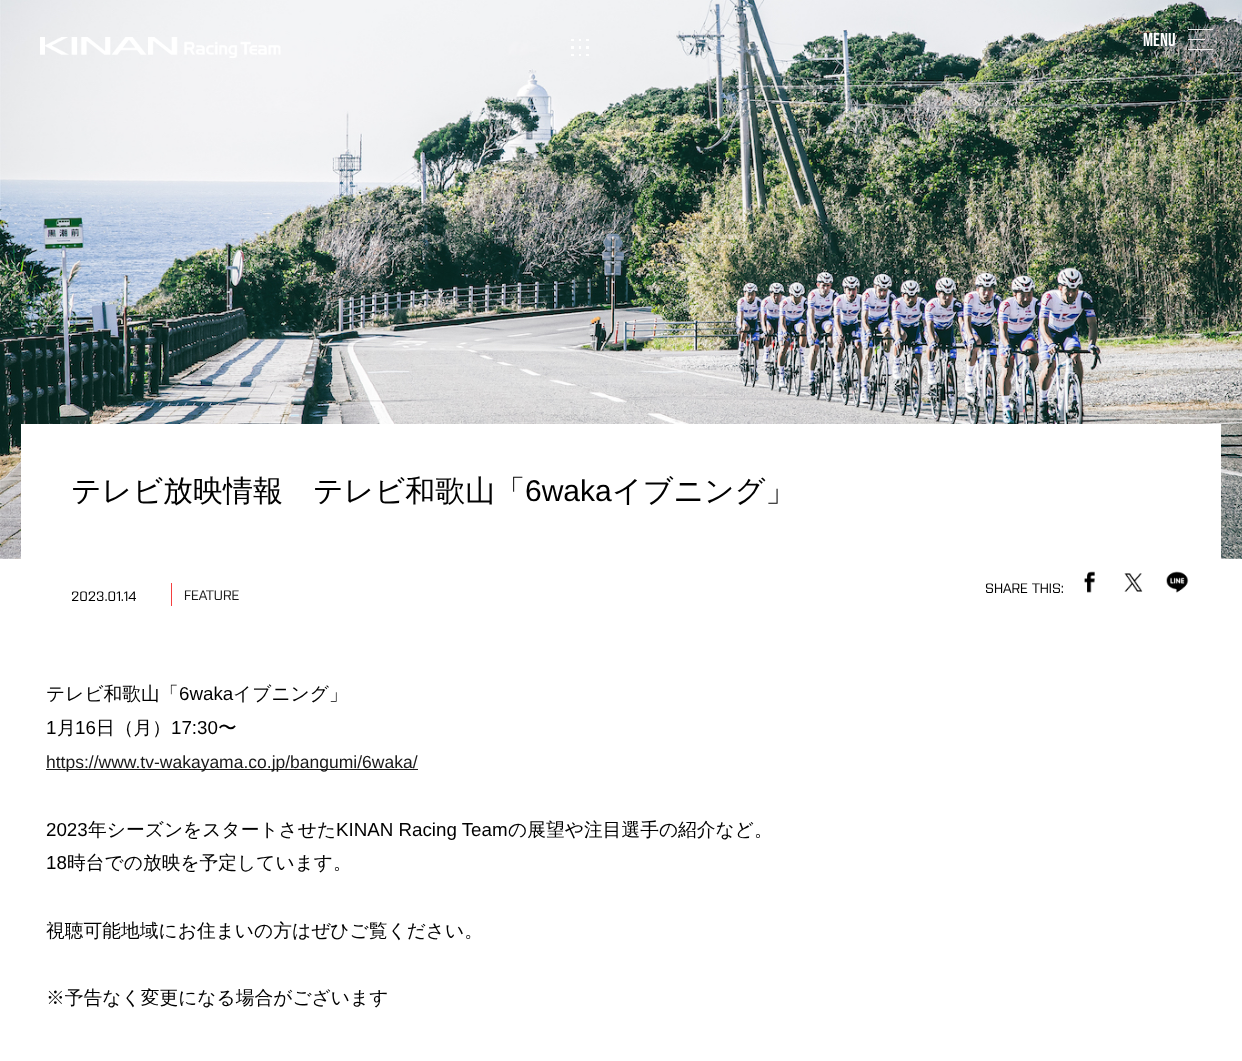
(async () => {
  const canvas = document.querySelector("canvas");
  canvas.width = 1242;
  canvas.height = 1061;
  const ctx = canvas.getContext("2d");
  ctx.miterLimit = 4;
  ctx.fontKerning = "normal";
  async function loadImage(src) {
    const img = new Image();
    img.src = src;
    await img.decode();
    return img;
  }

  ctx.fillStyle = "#ffffff";
  ctx.fillRect(0, 0, 1242, 1061);
  ctx.drawImage(await loadImage("img/3.png"), 0, 0, 1242, 559);
  ctx.drawImage(await loadImage("img/1.png"), 40, 37, 241, 21);
  for (const [x, y, w, h, color] of [
    [1188, 29, 25, 1, "#eeeeee"],
    [1188, 39, 17, 1, "#eeeeee"],
    [1188, 49, 25, 1, "#eeeeee"],
  ]) {
    ctx.fillStyle = color;
    ctx.fillRect(x, y, w, h);
  }
  ctx.drawImage(await loadImage("img/2.png"), 571, 39, 18, 17);
  ctx.fillStyle = "#ffffff";
  ctx.fillRect(21, 424, 1200, 135);
  ctx.drawImage(await loadImage("img/4.png"), 1084, 571, 11, 22);
  ctx.drawImage(await loadImage("img/5.png"), 1124, 573, 19, 19);
  ctx.drawImage(await loadImage("img/6.png"), 1166, 571, 23, 22);
  ctx.fillStyle = "#f53f3f";
  ctx.fillRect(171, 583, 1, 23);
  ctx.fillStyle = "#191919";
  ctx.fillRect(46, 769, 372, 1);
  ctx.font = "18.75px Bebas Neue";
  ctx.fillStyle = "#ffffff";
  ctx.fillText("Menu", 1143, 46);
  ctx.font = "500 30px WenQuanYi Zen Hei";
  ctx.fillStyle = "#000000";
  ctx.fillText("テレビ放映情報　テレビ和歌山「", 71, 501);
  ctx.font = "30px Liberation Sans";
  ctx.fillText("6waka", 525, 501);
  ctx.font = "500 30px WenQuanYi Zen Hei";
  ctx.fillText("イブニング」", 612, 501);
  ctx.font = "13.75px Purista";
  ctx.fillText("SHARE THIS:", 985, 593);
  ctx.fillText("2023.01.14", 71, 601);
  ctx.fillStyle = "#191919";
  ctx.fillText("FEATURE", 184, 600);
  ctx.font = "500 18.75px WenQuanYi Zen Hei";
  ctx.fillStyle = "#000000";
  ctx.fillText("テレビ和歌山「", 46, 700);
  ctx.font = "18.75px Liberation Sans";
  ctx.fillText("6waka", 179, 700);
  ctx.font = "500 18.75px WenQuanYi Zen Hei";
  ctx.fillText("イブニング」", 233, 700);
  ctx.font = "18.75px Liberation Sans";
  ctx.fillText("1", 46, 734);
  ctx.font = "500 18.75px WenQuanYi Zen Hei";
  ctx.fillText("月", 57, 734);
  ctx.font = "18.75px Liberation Sans";
  ctx.fillText("16", 75, 734);
  ctx.font = "500 18.75px WenQuanYi Zen Hei";
  ctx.fillText("日（月）", 96, 734);
  ctx.font = "18.75px Liberation Sans";
  ctx.fillText("17:30", 171, 734);
  ctx.font = "500 18.75px WenQuanYi Zen Hei";
  ctx.fillText("〜", 218, 734);
  ctx.font = "17.5px Liberation Sans";
  ctx.fillStyle = "#191919";
  ctx.fillText("https://www.tv-wakayama.co.jp/bangumi/6waka/", 46, 768);
  ctx.font = "18.75px Liberation Sans";
  ctx.fillStyle = "#000000";
  ctx.fillText("2023", 46, 836);
  ctx.font = "500 18.75px WenQuanYi Zen Hei";
  ctx.fillText("年シーズンをスタートさせた", 88, 836);
  ctx.font = "18.75px Liberation Sans";
  ctx.fillText("KINAN Racing Team", 336, 836);
  ctx.font = "500 18.75px WenQuanYi Zen Hei";
  ctx.fillText("の展望や注目選手の紹介など。", 508, 836);
  ctx.font = "18.75px Liberation Sans";
  ctx.fillText("18", 46, 869);
  ctx.font = "500 18.75px WenQuanYi Zen Hei";
  for (const [text, x, y] of [
    ["時台での放映を予定しています。", 67, 869],
    ["視聴可能地域にお住まいの方はぜひご覧ください。", 46, 937],
    ["※予告なく変更になる場合がございます", 46, 1004],
  ]) {
    ctx.fillText(text, x, y);
  }
})();
